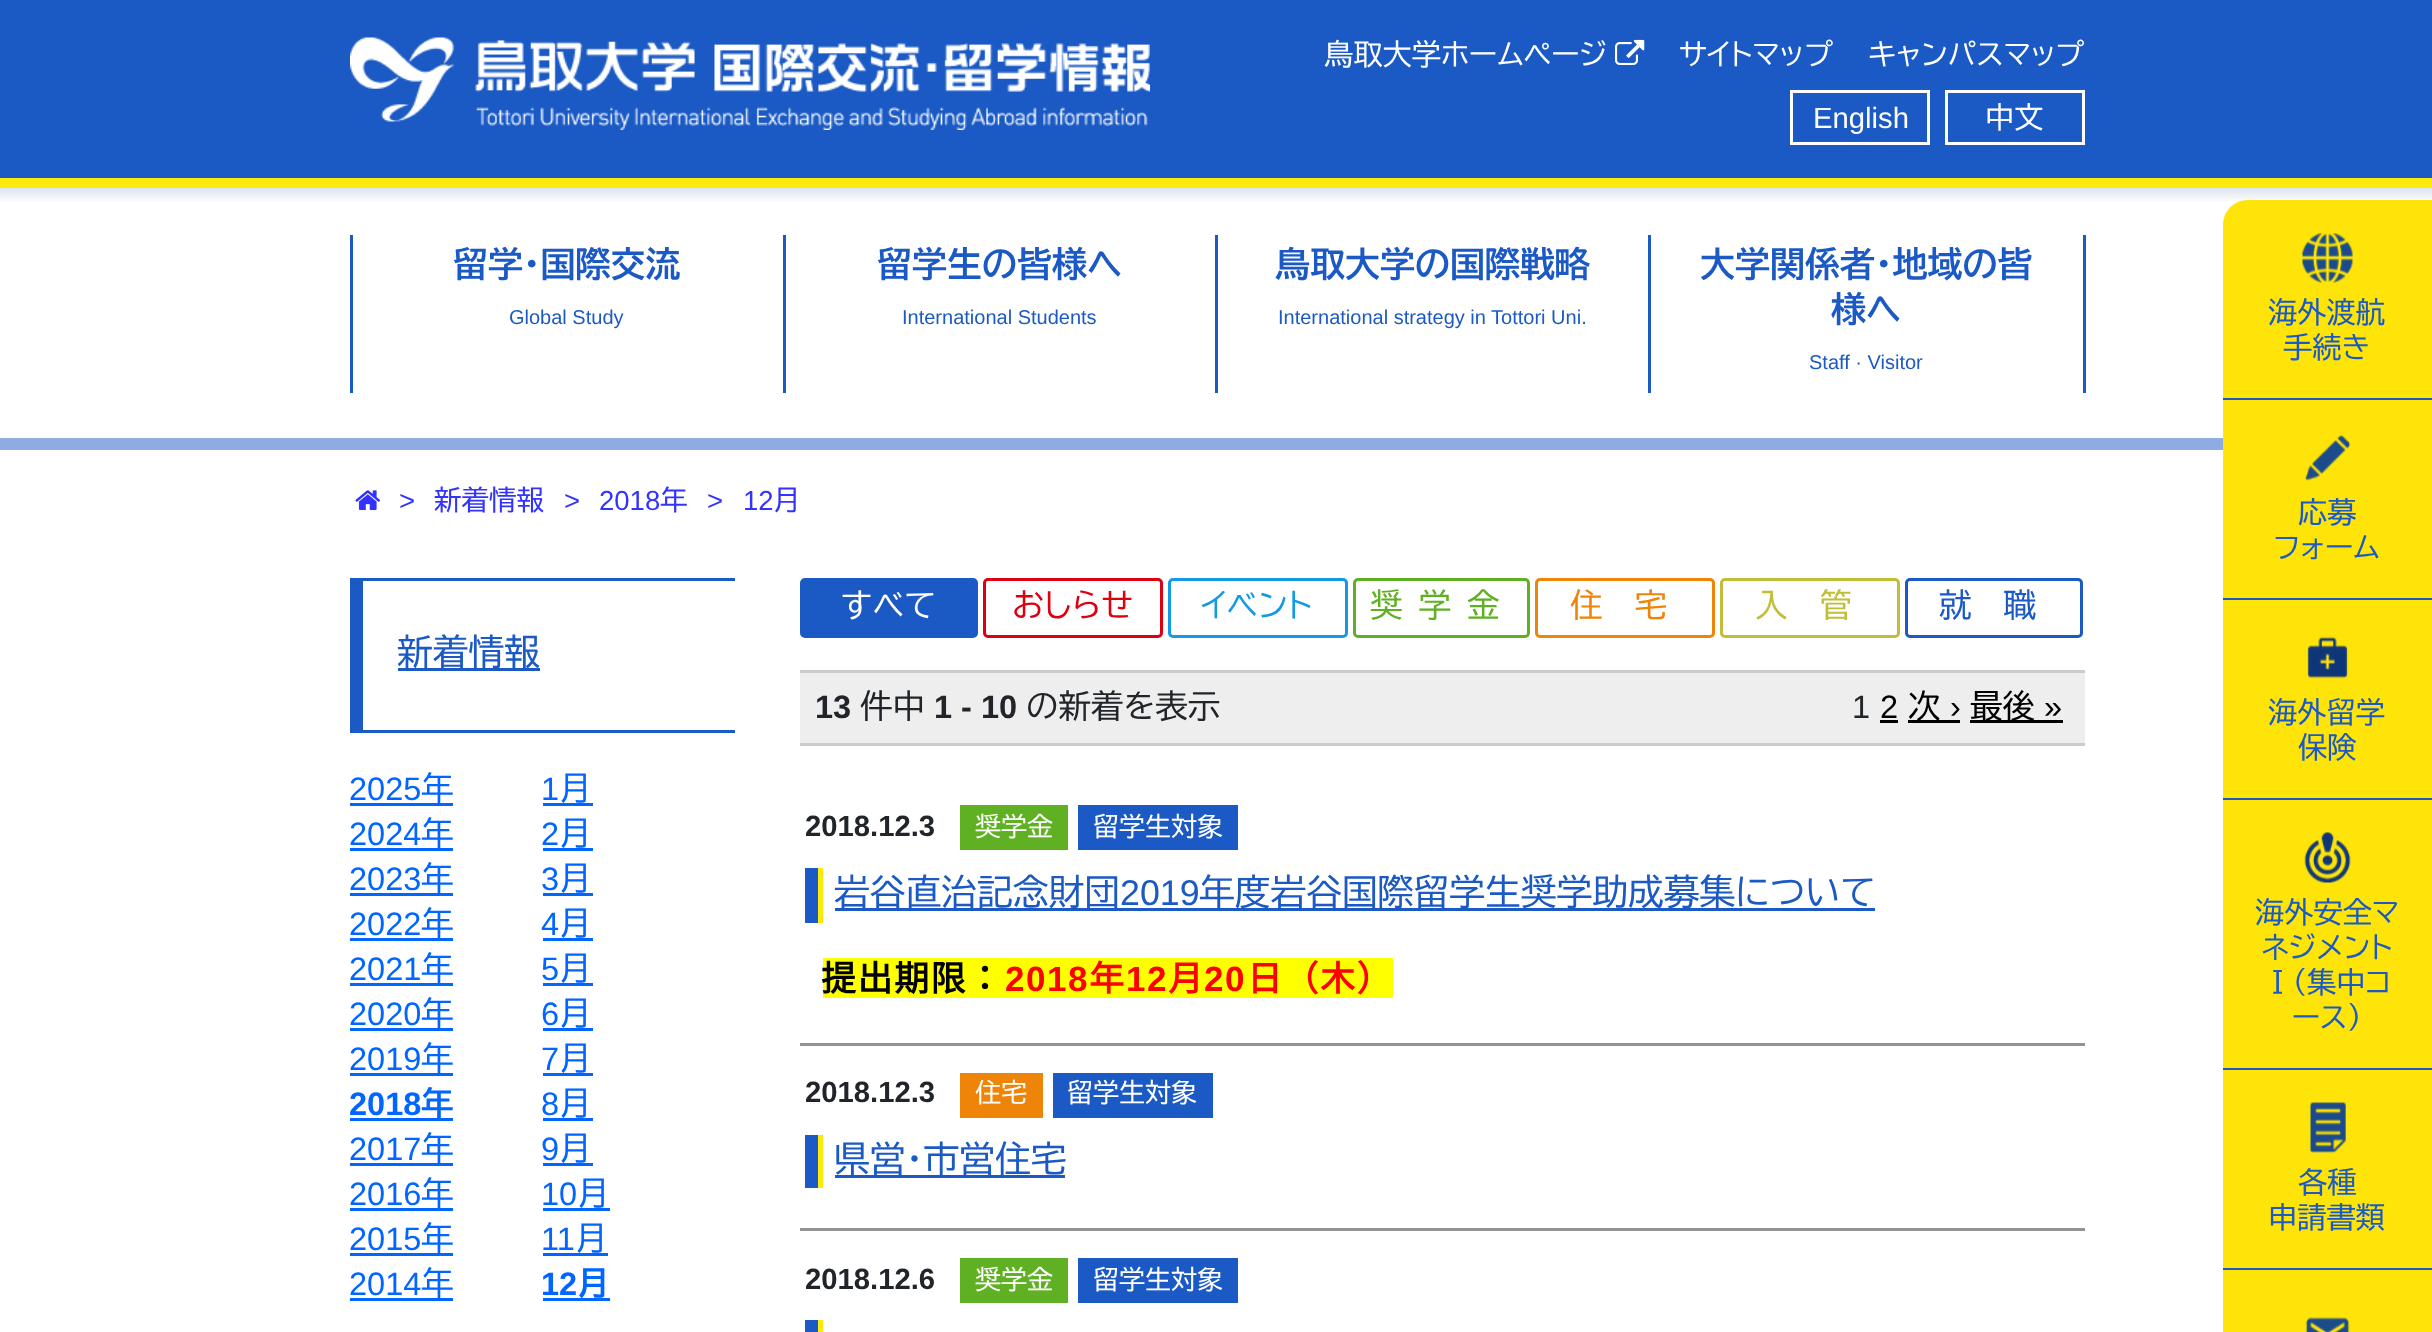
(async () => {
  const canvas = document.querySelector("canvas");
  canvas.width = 2432;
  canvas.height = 1332;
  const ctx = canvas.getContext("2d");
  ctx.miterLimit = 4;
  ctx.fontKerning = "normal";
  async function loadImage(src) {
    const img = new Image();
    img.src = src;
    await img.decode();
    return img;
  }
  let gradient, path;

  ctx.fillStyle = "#ffffff";
  ctx.fillRect(0, 0, 2432, 1332);
  ctx.fillStyle = "#1b5ac4";
  ctx.fillRect(0, 0, 2432, 178);
  ctx.drawImage(await loadImage("img/1.png"), 350, 37, 800, 93);
  ctx.drawImage(await loadImage("img/2.png"), 1615, 39, 30, 26);
  ctx.strokeStyle = "#ffffff";
  ctx.lineWidth = 3;
  ctx.strokeRect(1791.5, 91.5, 137, 52);
  ctx.strokeRect(1946.5, 91.5, 137, 52);
  gradient = ctx.createLinearGradient(1216, 187, 1216, 203);
  gradient.addColorStop(0, "#dae2ec");
  gradient.addColorStop(1, "#ffffff");
  ctx.fillStyle = gradient;
  ctx.fillRect(0, 188, 2432, 14);
  ctx.fillStyle = "#fee409";
  path = new Path2D("M2248 200H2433V398H2223V225C2223 211 2234 200 2248 200Z");
  ctx.fill(path);
  ctx.drawImage(await loadImage("img/3.png"), 2302, 233, 51, 50);
  ctx.fillStyle = "#1b5ac4";
  ctx.fillRect(2223, 398, 209, 2);
  ctx.fillStyle = "#fee409";
  ctx.fillRect(2223, 400, 209, 198);
  ctx.drawImage(await loadImage("img/4.png"), 2305, 435, 46, 46);
  ctx.fillStyle = "#1b5ac4";
  ctx.fillRect(2223, 598, 209, 2);
  ctx.fillStyle = "#fee409";
  ctx.fillRect(2223, 600, 209, 198);
  ctx.drawImage(await loadImage("img/5.png"), 2307, 636, 41, 43);
  ctx.fillStyle = "#1b5ac4";
  ctx.fillRect(2223, 798, 209, 2);
  ctx.fillStyle = "#fee409";
  ctx.fillRect(2223, 800, 209, 268);
  ctx.drawImage(await loadImage("img/6.png"), 2304, 832, 47, 51);
  ctx.fillStyle = "#1b5ac4";
  ctx.fillRect(2223, 1068, 209, 2);
  ctx.fillStyle = "#fee409";
  ctx.fillRect(2223, 1070, 209, 198);
  ctx.drawImage(await loadImage("img/7.png"), 2309, 1102, 38, 51);
  ctx.fillStyle = "#1b5ac4";
  ctx.fillRect(2223, 1268, 209, 2);
  ctx.fillStyle = "#fee409";
  ctx.fillRect(2223, 1270, 209, 62);
  ctx.drawImage(await loadImage("img/8.png"), 2305, 1317, 45, 15);
  for (const [x, y, w, h, color] of [
    [0, 178, 2432, 10, "#fee90c"],
    [350, 235, 3, 158, "#1b5ac4"],
    [783, 235, 3, 158, "#1b5ac4"],
    [1215, 235, 3, 158, "#1b5ac4"],
    [2083, 235, 3, 158, "#1b5ac4"],
    [1648, 235, 3, 158, "#1b5ac4"],
    [0, 438, 2223, 12, "#8dade2"],
  ]) {
    ctx.fillStyle = color;
    ctx.fillRect(x, y, w, h);
  }
  ctx.drawImage(await loadImage("img/9.png"), 355, 490, 26, 20);
  for (const [x, y, w, h, color] of [
    [363, 578, 372, 3, "#1b5ac4"],
    [363, 730, 372, 3, "#1b5ac4"],
    [350, 578, 13, 155, "#1b5ac4"],
    [398, 668, 142, 3, "#1b5ac4"],
    [350, 803, 103, 3, "#0066ff"],
    [350, 848, 103, 3, "#0066ff"],
    [350, 893, 103, 3, "#0066ff"],
    [350, 938, 103, 3, "#0066ff"],
    [350, 983, 103, 3, "#0066ff"],
    [350, 1028, 103, 3, "#0066ff"],
    [350, 1073, 103, 3, "#0066ff"],
    [350, 1118, 103, 3, "#0066ff"],
    [350, 1163, 103, 3, "#0066ff"],
    [350, 1208, 103, 3, "#0066ff"],
    [350, 1253, 103, 3, "#0066ff"],
    [350, 1298, 103, 3, "#0066ff"],
    [543, 803, 50, 3, "#0066ff"],
    [543, 848, 50, 3, "#0066ff"],
    [543, 893, 50, 3, "#0066ff"],
    [543, 938, 50, 3, "#0066ff"],
    [543, 983, 50, 3, "#0066ff"],
    [543, 1028, 50, 3, "#0066ff"],
    [543, 1073, 50, 3, "#0066ff"],
    [543, 1118, 50, 3, "#0066ff"],
    [543, 1163, 50, 3, "#0066ff"],
    [543, 1208, 67, 3, "#0066ff"],
    [543, 1253, 65, 3, "#0066ff"],
    [543, 1298, 67, 3, "#0066ff"],
  ]) {
    ctx.fillStyle = color;
    ctx.fillRect(x, y, w, h);
  }
  ctx.fillStyle = "#1b5ac4";
  ctx.beginPath();
  ctx.roundRect(801.5, 579.5, 175, 57, 3.5);
  ctx.fill();
  ctx.strokeStyle = "#1b5ac4";
  ctx.stroke();
  ctx.beginPath();
  ctx.roundRect(984.5, 579.5, 177, 57, 3.5);
  ctx.strokeStyle = "#dc0011";
  ctx.stroke();
  ctx.beginPath();
  ctx.roundRect(1169.5, 579.5, 177, 57, 3.5);
  ctx.strokeStyle = "#139ae5";
  ctx.stroke();
  ctx.beginPath();
  ctx.roundRect(1354.5, 579.5, 174, 57, 3.5);
  ctx.strokeStyle = "#5fb022";
  ctx.stroke();
  ctx.beginPath();
  ctx.roundRect(1536.5, 579.5, 177, 57, 3.5);
  ctx.strokeStyle = "#ee8508";
  ctx.stroke();
  ctx.beginPath();
  ctx.roundRect(1721.5, 579.5, 177, 57, 3.5);
  ctx.strokeStyle = "#c1bf39";
  ctx.stroke();
  ctx.beginPath();
  ctx.roundRect(1906.5, 579.5, 175, 57, 3.5);
  ctx.strokeStyle = "#1b5ac4";
  ctx.stroke();
  for (const [x, y, w, h, color] of [
    [800, 673, 1285, 70, "#eeeeee"],
    [800, 670, 1285, 3, "#cccccc"],
    [800, 743, 1285, 3, "#cccccc"],
    [1880, 720, 18, 3, "#000000"],
    [1908, 720, 52, 3, "#000000"],
    [1970, 720, 93, 3, "#000000"],
    [800, 1043, 1285, 3, "#949393"],
    [960, 805, 108, 45, "#5fb022"],
    [1078, 805, 160, 45, "#1b5ac4"],
    [805, 868, 13, 55, "#1b5ac4"],
    [818, 868, 5, 55, "#fee90c"],
    [835, 908, 1040, 3, "#1b5ac4"],
    [823, 958, 570, 40, "#ffff00"],
    [800, 1228, 1285, 3, "#949393"],
    [960, 1073, 83, 45, "#ee8508"],
    [1053, 1073, 160, 45, "#1b5ac4"],
    [805, 1135, 13, 53, "#1b5ac4"],
    [818, 1135, 5, 53, "#fee90c"],
    [835, 1175, 230, 3, "#1b5ac4"],
    [960, 1258, 108, 45, "#5fb022"],
    [1078, 1258, 160, 45, "#1b5ac4"],
    [805, 1320, 13, 12, "#1b5ac4"],
    [818, 1320, 5, 12, "#fee90c"],
  ]) {
    ctx.fillStyle = color;
    ctx.fillRect(x, y, w, h);
  }
  ctx.font = "29.25px BIZ UDPGothic";
  ctx.fillStyle = "#ffffff";
  for (const [text, x, y] of [
    ["鳥取大学ホームページ", 1324, 65],
    ["サイトマップ", 1679, 65],
    ["キャンパスマップ", 1868, 65],
  ]) {
    ctx.fillText(text, x, y);
  }
  ctx.font = "29.25px Liberation Sans";
  ctx.fillText("English", 1813, 128);
  ctx.font = "29.25px BIZ UDPGothic";
  ctx.fillText("中文", 1985, 128);
  ctx.fillStyle = "#1b5ac4";
  for (const [text, x, y] of [
    ["海外渡航", 2268, 323],
    ["手続き", 2283, 358],
    ["応募", 2298, 523],
    ["フォーム", 2274, 558],
    ["海外留学", 2268, 723],
    ["保険", 2298, 758],
    ["海外安全マ", 2255, 923],
    ["ネジメント", 2262, 958],
    ["Ⅰ（集中コ", 2263, 993],
    ["ース）", 2292, 1028],
    ["各種", 2298, 1193],
    ["申請書類", 2268, 1228],
  ]) {
    ctx.fillText(text, x, y);
  }
  ctx.font = "bold 35px BIZ UDPGothic";
  ctx.fillText("留学・国際交流", 453, 277);
  ctx.font = "20px Liberation Sans";
  ctx.fillText("Global Study", 509, 324);
  ctx.font = "bold 35px BIZ UDPGothic";
  ctx.fillText("留学生の皆様へ", 877, 277);
  ctx.font = "20px Liberation Sans";
  ctx.fillText("International Students", 902, 324);
  ctx.font = "bold 35px BIZ UDPGothic";
  ctx.fillText("鳥取大学の国際戦略", 1275, 277);
  ctx.font = "20px Liberation Sans";
  ctx.fillText("International strategy in Tottori Uni.", 1278, 324);
  ctx.font = "bold 35px BIZ UDPGothic";
  ctx.fillText("大学関係者・地域の皆", 1700, 277);
  ctx.fillText("様へ", 1831, 322);
  ctx.font = "20px Liberation Sans";
  ctx.fillText("Staff · Visitor", 1809, 369);
  ctx.font = "27.5px Liberation Sans";
  ctx.fillStyle = "#3333ff";
  ctx.fillText(">", 399, 510);
  ctx.font = "27.5px BIZ UDPGothic";
  ctx.fillText("新着情報", 434, 510);
  ctx.font = "27.5px Liberation Sans";
  ctx.fillText(">", 564, 510);
  ctx.fillText("2018", 599, 510);
  ctx.font = "27.5px BIZ UDPGothic";
  ctx.fillText("年", 660, 510);
  ctx.font = "27.5px Liberation Sans";
  ctx.fillText(">", 707, 510);
  ctx.fillText("12", 743, 510);
  ctx.font = "27.5px BIZ UDPGothic";
  ctx.fillText("月", 773, 510);
  ctx.font = "35.75px BIZ UDPGothic";
  ctx.fillStyle = "#1b5ac4";
  ctx.fillText("新着情報", 397, 665);
  ctx.font = "32.5px Liberation Sans";
  ctx.fillStyle = "#0066ff";
  ctx.fillText("2025", 349, 800);
  ctx.font = "32.5px BIZ UDPGothic";
  ctx.fillText("年", 421, 800);
  ctx.font = "32.5px Liberation Sans";
  ctx.fillText("2024", 349, 845);
  ctx.font = "32.5px BIZ UDPGothic";
  ctx.fillText("年", 421, 845);
  ctx.font = "32.5px Liberation Sans";
  ctx.fillText("2023", 349, 890);
  ctx.font = "32.5px BIZ UDPGothic";
  ctx.fillText("年", 421, 890);
  ctx.font = "32.5px Liberation Sans";
  ctx.fillText("2022", 349, 935);
  ctx.font = "32.5px BIZ UDPGothic";
  ctx.fillText("年", 421, 935);
  ctx.font = "32.5px Liberation Sans";
  ctx.fillText("2021", 349, 980);
  ctx.font = "32.5px BIZ UDPGothic";
  ctx.fillText("年", 421, 980);
  ctx.font = "32.5px Liberation Sans";
  ctx.fillText("2020", 349, 1025);
  ctx.font = "32.5px BIZ UDPGothic";
  ctx.fillText("年", 421, 1025);
  ctx.font = "32.5px Liberation Sans";
  ctx.fillText("2019", 349, 1070);
  ctx.font = "32.5px BIZ UDPGothic";
  ctx.fillText("年", 421, 1070);
  ctx.font = "bold 32.5px Liberation Sans";
  ctx.fillText("2018", 349, 1115);
  ctx.font = "bold 32.5px BIZ UDPGothic";
  ctx.fillText("年", 421, 1115);
  ctx.font = "32.5px Liberation Sans";
  ctx.fillText("2017", 349, 1160);
  ctx.font = "32.5px BIZ UDPGothic";
  ctx.fillText("年", 421, 1160);
  ctx.font = "32.5px Liberation Sans";
  ctx.fillText("2016", 349, 1205);
  ctx.font = "32.5px BIZ UDPGothic";
  ctx.fillText("年", 421, 1205);
  ctx.font = "32.5px Liberation Sans";
  ctx.fillText("2015", 349, 1250);
  ctx.font = "32.5px BIZ UDPGothic";
  ctx.fillText("年", 421, 1250);
  ctx.font = "32.5px Liberation Sans";
  ctx.fillText("2014", 349, 1295);
  ctx.font = "32.5px BIZ UDPGothic";
  ctx.fillText("年", 421, 1295);
  ctx.font = "32.5px Liberation Sans";
  ctx.fillText("1", 541, 800);
  ctx.font = "32.5px BIZ UDPGothic";
  ctx.fillText("月", 559, 800);
  ctx.font = "32.5px Liberation Sans";
  ctx.fillText("2", 541, 845);
  ctx.font = "32.5px BIZ UDPGothic";
  ctx.fillText("月", 559, 845);
  ctx.font = "32.5px Liberation Sans";
  ctx.fillText("3", 541, 890);
  ctx.font = "32.5px BIZ UDPGothic";
  ctx.fillText("月", 559, 890);
  ctx.font = "32.5px Liberation Sans";
  ctx.fillText("4", 541, 935);
  ctx.font = "32.5px BIZ UDPGothic";
  ctx.fillText("月", 559, 935);
  ctx.font = "32.5px Liberation Sans";
  ctx.fillText("5", 541, 980);
  ctx.font = "32.5px BIZ UDPGothic";
  ctx.fillText("月", 559, 980);
  ctx.font = "32.5px Liberation Sans";
  ctx.fillText("6", 541, 1025);
  ctx.font = "32.5px BIZ UDPGothic";
  ctx.fillText("月", 559, 1025);
  ctx.font = "32.5px Liberation Sans";
  ctx.fillText("7", 541, 1070);
  ctx.font = "32.5px BIZ UDPGothic";
  ctx.fillText("月", 559, 1070);
  ctx.font = "32.5px Liberation Sans";
  ctx.fillText("8", 541, 1115);
  ctx.font = "32.5px BIZ UDPGothic";
  ctx.fillText("月", 559, 1115);
  ctx.font = "32.5px Liberation Sans";
  ctx.fillText("9", 541, 1160);
  ctx.font = "32.5px BIZ UDPGothic";
  ctx.fillText("月", 559, 1160);
  ctx.font = "32.5px Liberation Sans";
  ctx.fillText("10", 541, 1205);
  ctx.font = "32.5px BIZ UDPGothic";
  ctx.fillText("月", 577, 1205);
  ctx.font = "32.5px Liberation Sans";
  ctx.fillText("11", 541, 1250);
  ctx.font = "32.5px BIZ UDPGothic";
  ctx.fillText("月", 575, 1250);
  ctx.font = "bold 32.5px Liberation Sans";
  ctx.fillText("12", 541, 1295);
  ctx.font = "bold 32.5px BIZ UDPGothic";
  ctx.fillText("月", 577, 1295);
  ctx.font = "32.5px BIZ UDPGothic";
  ctx.fillStyle = "#ffffff";
  ctx.fillText("すべて", 841, 617);
  ctx.fillStyle = "#dc0011";
  ctx.fillText("おしらせ", 1012, 617);
  ctx.fillStyle = "#139ae5";
  ctx.fillText("イベント", 1201, 617);
  ctx.letterSpacing = "16px";
  ctx.fillStyle = "#5fb022";
  ctx.fillText("奨学金", 1370, 617);
  ctx.letterSpacing = "32px";
  ctx.fillStyle = "#ee8508";
  ctx.fillText("住宅", 1570, 617);
  ctx.fillStyle = "#c1bf39";
  ctx.fillText("入管", 1755, 617);
  ctx.fillStyle = "#1b5ac4";
  ctx.fillText("就職", 1939, 617);
  ctx.letterSpacing = "0px";
  ctx.font = "bold 32.5px Liberation Sans";
  ctx.fillStyle = "#212529";
  ctx.fillText("13", 815, 718);
  ctx.font = "32.5px BIZ UDPGothic";
  ctx.fillText("件中", 860, 718);
  ctx.font = "bold 32.5px Liberation Sans";
  ctx.fillText("1 - 10", 934, 718);
  ctx.font = "32.5px BIZ UDPGothic";
  ctx.fillText("の新着を表示", 1026, 718);
  ctx.font = "32.5px Liberation Sans";
  ctx.fillText("1", 1852, 718);
  ctx.fillStyle = "#000000";
  ctx.fillText("2", 1880, 718);
  ctx.font = "32.5px BIZ UDPGothic";
  ctx.fillText("次", 1908, 718);
  ctx.font = "32.5px Liberation Sans";
  ctx.fillText("›", 1950, 718);
  ctx.font = "32.5px BIZ UDPGothic";
  ctx.fillText("最後", 1970, 718);
  ctx.font = "32.5px Liberation Sans";
  ctx.fillText("»", 2044, 718);
  ctx.font = "bold 29.25px Liberation Sans";
  ctx.fillStyle = "#212529";
  ctx.fillText("2018.12.3", 805, 836);
  ctx.font = "26px BIZ UDPGothic";
  ctx.fillStyle = "#ffffff";
  ctx.fillText("奨学金", 975, 836);
  ctx.fillText("留学生対象", 1093, 836);
  ctx.font = "35.75px BIZ UDPGothic";
  ctx.fillStyle = "#1b5ac4";
  ctx.fillText("岩谷直治記念財団", 834, 905);
  ctx.font = "35.75px Liberation Sans";
  ctx.fillText("2019", 1120, 905);
  ctx.font = "35.75px BIZ UDPGothic";
  ctx.fillText("年度岩谷国際留学生奨学助成募集について", 1199, 905);
  ctx.letterSpacing = "1.5px";
  ctx.font = "bold 35px Noto Sans CJK TC";
  ctx.fillStyle = "#000000";
  ctx.fillText("提出期限：", 821, 991);
  ctx.font = "bold 35px Liberation Sans";
  ctx.fillStyle = "#ff0000";
  ctx.fillText("2018", 1005, 991);
  ctx.font = "bold 35px Noto Sans CJK TC";
  ctx.fillText("年", 1089, 991);
  ctx.font = "bold 35px Liberation Sans";
  ctx.fillText("12", 1126, 991);
  ctx.font = "bold 35px Noto Sans CJK TC";
  ctx.fillText("月", 1168, 991);
  ctx.font = "bold 35px Liberation Sans";
  ctx.fillText("20", 1204, 991);
  ctx.font = "bold 35px Noto Sans CJK TC";
  ctx.fillText("日（木）", 1247, 991);
  ctx.letterSpacing = "0px";
  ctx.font = "bold 29.25px Liberation Sans";
  ctx.fillStyle = "#212529";
  ctx.fillText("2018.12.3", 805, 1102);
  ctx.font = "26px BIZ UDPGothic";
  ctx.fillStyle = "#ffffff";
  ctx.fillText("住宅", 975, 1102);
  ctx.fillText("留学生対象", 1067, 1102);
  ctx.font = "35.75px BIZ UDPGothic";
  ctx.fillStyle = "#1b5ac4";
  ctx.fillText("県営・市営住宅", 834, 1172);
  ctx.font = "bold 29.25px Liberation Sans";
  ctx.fillStyle = "#212529";
  ctx.fillText("2018.12.6", 805, 1289);
  ctx.font = "26px BIZ UDPGothic";
  ctx.fillStyle = "#ffffff";
  ctx.fillText("奨学金", 975, 1289);
  ctx.fillText("留学生対象", 1093, 1289);
})();
